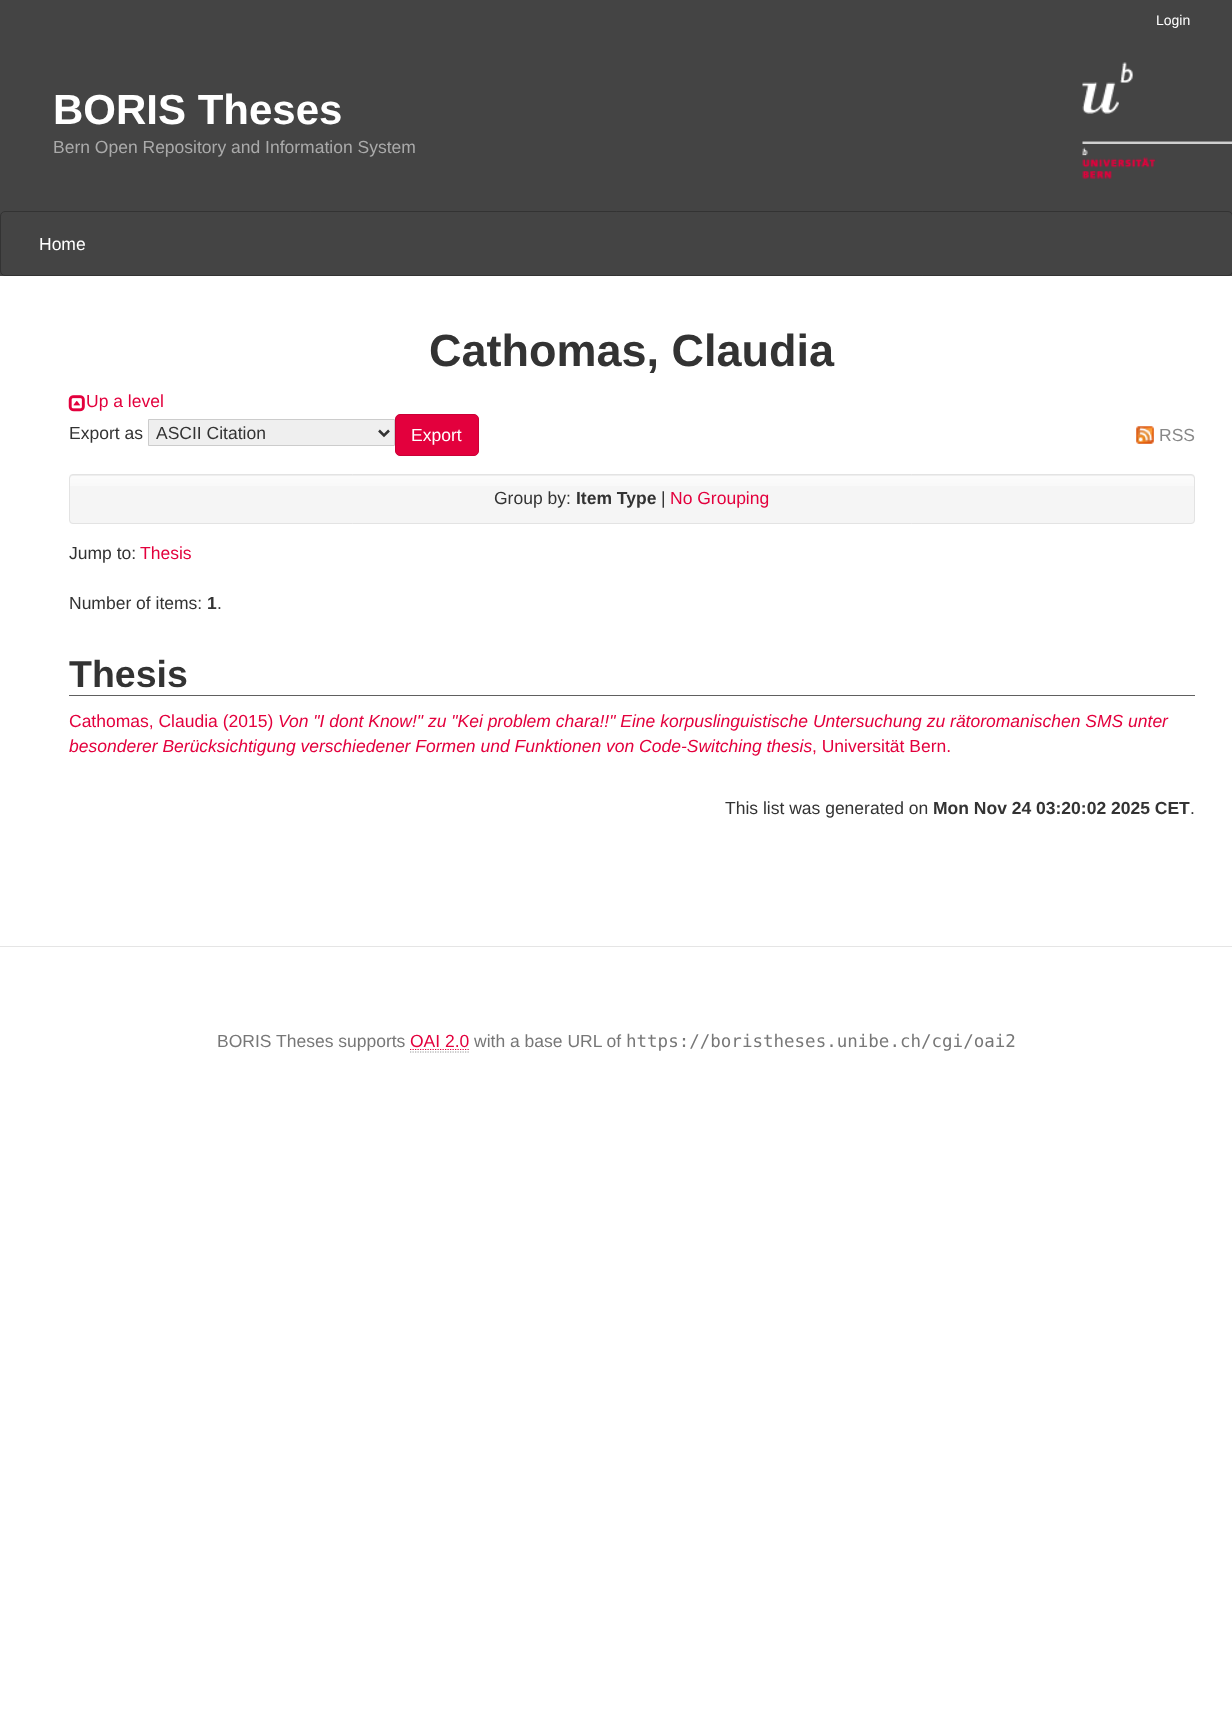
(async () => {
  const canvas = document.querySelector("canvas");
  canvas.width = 1232;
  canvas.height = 1709;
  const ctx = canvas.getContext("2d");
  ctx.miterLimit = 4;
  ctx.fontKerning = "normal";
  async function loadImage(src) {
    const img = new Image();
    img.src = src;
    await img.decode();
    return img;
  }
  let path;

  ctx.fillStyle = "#ffffff";
  ctx.fillRect(0, 0, 1232, 1709);
  ctx.fillStyle = "#444444";
  ctx.fillRect(0, 0, 1232, 276);
  ctx.drawImage(await loadImage("img/1.png"), 1082, 62, 150, 117);
  ctx.beginPath();
  ctx.roundRect(0.5, 211.5, 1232, 64, 4.5);
  ctx.strokeStyle = "#333333";
  ctx.stroke();
  ctx.drawImage(await loadImage("img/2.png"), 68, 395, 17, 17);
  ctx.fillStyle = "#efefef";
  ctx.beginPath();
  ctx.rect(148.5, 419.5, 246, 26);
  ctx.fill();
  ctx.strokeStyle = "#cccccc";
  ctx.stroke();
  path = new Path2D("M379 430.5L384 435.5L389 430.5");
  ctx.strokeStyle = "#333333";
  ctx.lineWidth = 2.5;
  ctx.stroke(path);
  ctx.fillStyle = "#e3003d";
  ctx.beginPath();
  ctx.roundRect(395.5, 414.5, 83, 41, 4.5);
  ctx.fill();
  ctx.strokeStyle = "#ca0036";
  ctx.lineWidth = 1;
  ctx.stroke();
  ctx.drawImage(await loadImage("img/3.png"), 1136, 426, 18, 18);
  ctx.fillStyle = "#f5f5f5";
  ctx.beginPath();
  ctx.roundRect(69, 474, 1126, 50, 4);
  ctx.fill();
  ctx.drawImage(await loadImage("img/4.png"), 69, 475, 1126, 11);
  ctx.fillStyle = "#eeeeee";
  path = new Path2D("M72 476H1191C1193 476 1194 477 1194 479C1194 477 1194 475 1192 475H72C70 475 70 477 70 479C70 477 71 476 72 476Z");
  ctx.fill(path);
  ctx.beginPath();
  ctx.roundRect(69.5, 474.5, 1125, 49, 3.5);
  ctx.strokeStyle = "#e3e3e3";
  ctx.stroke();
  ctx.fillStyle = "#606060";
  ctx.fillRect(69, 695, 1126, 1);
  ctx.fillStyle = "#e5e5e5";
  ctx.fillRect(0, 946, 1232, 1);
  path = new Path2D("M410 1052H469");
  ctx.strokeStyle = "#999999";
  ctx.lineWidth = 1.2;
  ctx.setLineDash([1.25, 1.25]);
  ctx.stroke(path);
  path = new Path2D("M410 1049.5H469");
  ctx.strokeStyle = "#e3003d";
  ctx.stroke(path);
  ctx.font = "14px Liberation Sans";
  ctx.fillStyle = "#ffffff";
  ctx.fillText("Login", 1156, 25);
  ctx.font = "bold 42px Liberation Sans";
  ctx.fillText("BORIS Theses", 53, 124);
  ctx.font = "17.5px Liberation Sans";
  ctx.fillStyle = "#aaaaaa";
  ctx.fillText("Bern Open Repository and Information System", 53, 153);
  ctx.fillStyle = "#ffffff";
  ctx.fillText("Home", 39, 250);
  ctx.font = "bold 45px Liberation Sans";
  ctx.fillStyle = "#333333";
  ctx.fillText("Cathomas, Claudia", 429, 366);
  ctx.font = "17.5px Liberation Sans";
  ctx.fillStyle = "#e3003d";
  ctx.fillText("Up a level", 86, 407);
  ctx.fillStyle = "#333333";
  ctx.fillText("Export as", 69, 439);
  ctx.fillText("ASCII Citation", 156, 439);
  ctx.fillStyle = "#ffffff";
  ctx.fillText("Export", 411, 441);
  ctx.fillStyle = "#888888";
  ctx.fillText("RSS", 1159, 441);
  ctx.fillStyle = "#333333";
  ctx.fillText("Group by:", 494, 504);
  ctx.font = "bold 17.5px Liberation Sans";
  ctx.fillText("Item Type", 576, 504);
  ctx.font = "17.5px Liberation Sans";
  ctx.fillText("|", 661, 504);
  ctx.fillStyle = "#e3003d";
  ctx.fillText("No Grouping", 670, 504);
  ctx.fillStyle = "#333333";
  ctx.fillText("Jump to:", 69, 559);
  ctx.fillStyle = "#e3003d";
  ctx.fillText("Thesis", 140, 559);
  ctx.fillStyle = "#333333";
  ctx.fillText("Number of items:", 69, 609);
  ctx.font = "bold 17.5px Liberation Sans";
  ctx.fillText("1", 207, 609);
  ctx.font = "17.5px Liberation Sans";
  ctx.fillText(".", 217, 609);
  ctx.font = "bold 37.5px Liberation Sans";
  ctx.fillText("Thesis", 69, 687);
  ctx.font = "17.5px Liberation Sans";
  ctx.fillStyle = "#e3003d";
  ctx.fillText("Cathomas, Claudia (2015)", 69, 727);
  ctx.font = "italic 17.5px Liberation Sans";
  ctx.fillText("Von \"I dont Know!\" zu \"Kei problem chara!!\" Eine korpuslinguistische Untersuchung zu rätoromanischen SMS unter", 278, 727);
  ctx.fillText("besonderer Berücksichtigung verschiedener Formen und Funktionen von Code-Switching thesis", 69, 752);
  ctx.font = "17.5px Liberation Sans";
  ctx.fillText(", Universität Bern.", 812, 752);
  ctx.fillStyle = "#333333";
  ctx.fillText("This list was generated on", 725, 814);
  ctx.font = "bold 17.5px Liberation Sans";
  ctx.fillText("Mon Nov 24 03:20:02 2025 CET", 933, 814);
  ctx.font = "17.5px Liberation Sans";
  ctx.fillText(".", 1190, 814);
  ctx.fillStyle = "#777777";
  ctx.fillText("BORIS Theses supports", 217, 1047);
  ctx.fillStyle = "#e3003d";
  ctx.fillText("OAI 2.0", 410, 1047);
  ctx.fillStyle = "#777777";
  ctx.fillText("with a base URL of", 474, 1047);
  ctx.font = "17.5px DejaVu Sans Mono";
  ctx.fillText("https://boristheses.unibe.ch/cgi/oai2", 626, 1047);
})();
